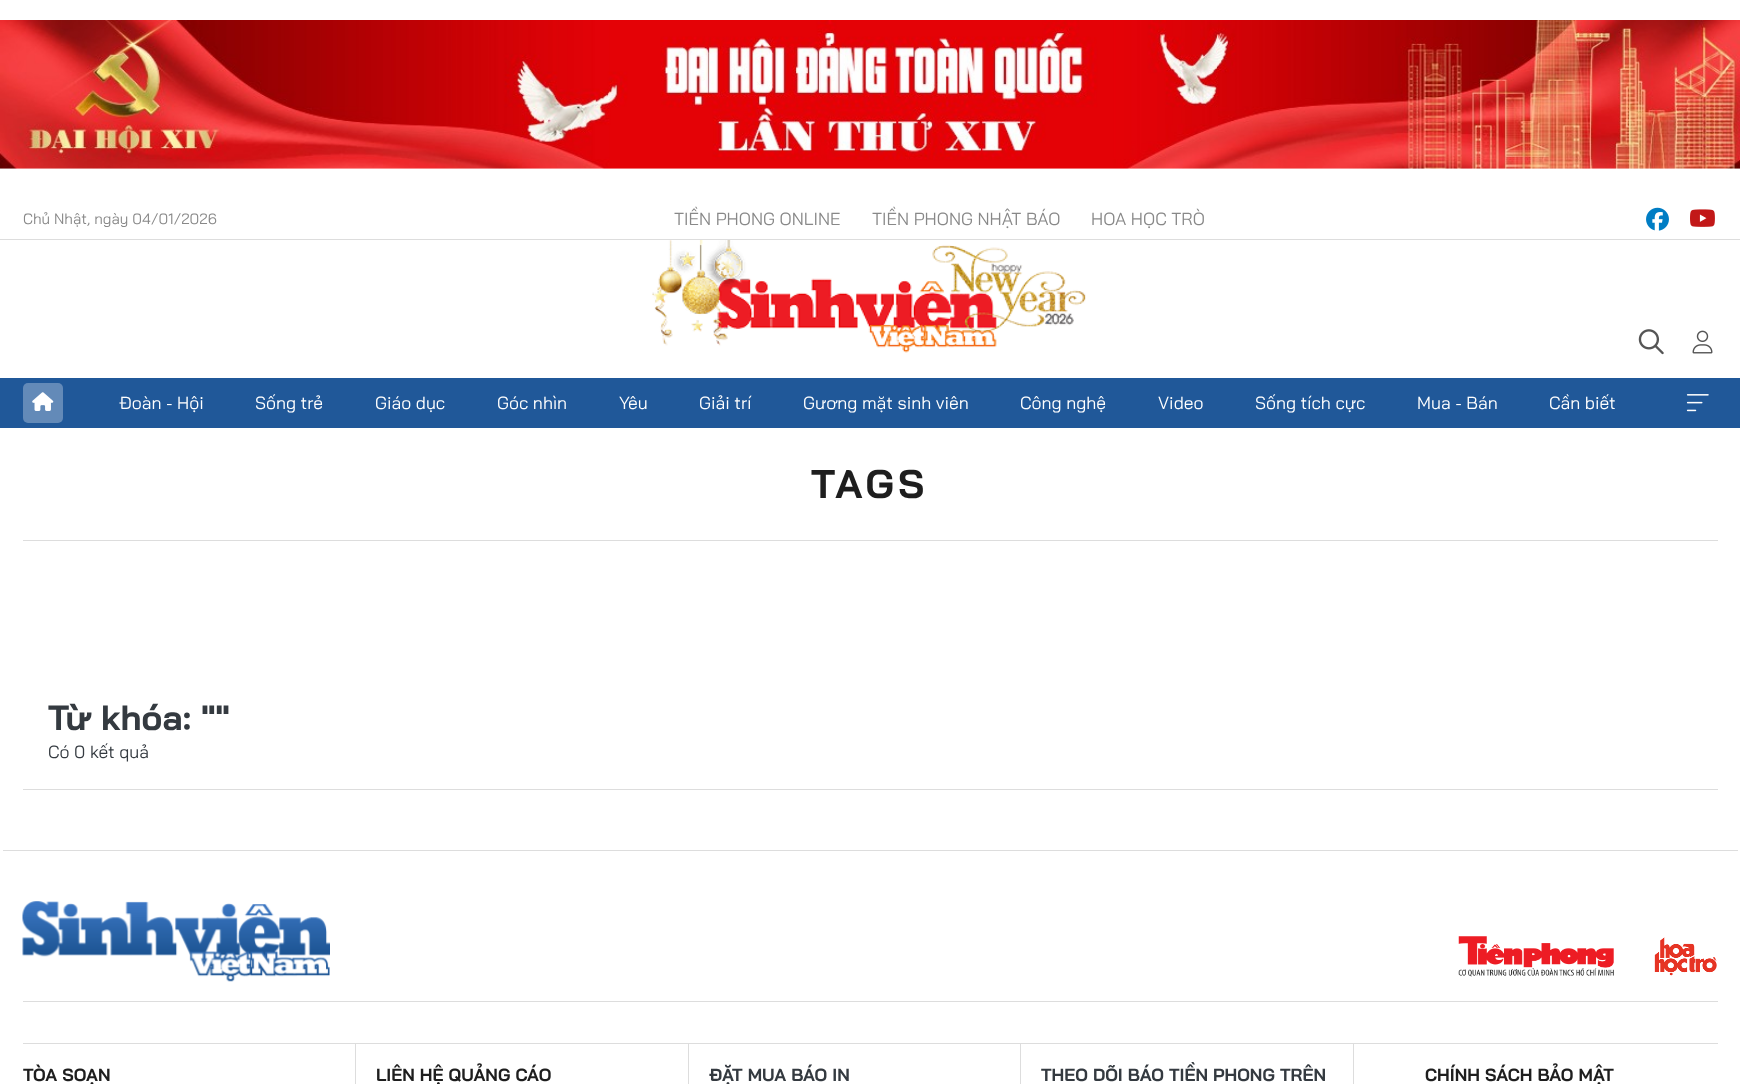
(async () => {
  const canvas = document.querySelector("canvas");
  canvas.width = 1740;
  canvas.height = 1084;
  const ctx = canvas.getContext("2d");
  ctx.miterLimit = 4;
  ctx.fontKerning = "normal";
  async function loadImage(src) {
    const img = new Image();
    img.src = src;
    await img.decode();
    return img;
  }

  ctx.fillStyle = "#ffffff";
  ctx.fillRect(0, 0, 1740, 1084);
  ctx.drawImage(await loadImage("img/1.png"), 0, 20, 1740, 149);
  ctx.fillStyle = "#dddddd";
  ctx.fillRect(0, 239, 1740, 1);
  ctx.drawImage(await loadImage("img/2.png"), 1646, 207, 23, 24);
  ctx.drawImage(await loadImage("img/3.png"), 1690, 209, 25, 18);
  ctx.drawImage(await loadImage("img/4.png"), 652, 240, 434, 113);
  ctx.drawImage(await loadImage("img/5.png"), 1638, 329, 26, 26);
  ctx.drawImage(await loadImage("img/6.png"), 1692, 330, 21, 24);
  ctx.fillStyle = "#205899";
  ctx.fillRect(0, 378, 1740, 50);
  ctx.fillStyle = "#638ab8";
  ctx.beginPath();
  ctx.roundRect(23, 383, 40, 40, 5);
  ctx.fill();
  ctx.drawImage(await loadImage("img/7.png"), 32, 392, 22, 19);
  ctx.drawImage(await loadImage("img/8.png"), 1686, 394, 23, 18);
  for (const [x, y, w, h, color] of [
    [23, 540, 1695, 1, "#dddddd"],
    [23, 789, 1695, 1, "#dddddd"],
    [3, 850, 1735, 1, "#dddddd"],
    [23, 1001, 1695, 1, "#dddddd"],
  ]) {
    ctx.fillStyle = color;
    ctx.fillRect(x, y, w, h);
  }
  ctx.drawImage(await loadImage("img/9.png"), 22, 901, 308, 81);
  ctx.drawImage(await loadImage("img/10.png"), 1458, 936, 156, 41);
  ctx.drawImage(await loadImage("img/11.png"), 1654, 937, 63, 39);
  for (const [x, y, w, h, color] of [
    [23, 1043, 1695, 1, "#dddddd"],
    [355, 1044, 1, 40, "#dddddd"],
    [688, 1044, 1, 40, "#dddddd"],
    [1020, 1044, 1, 40, "#dddddd"],
    [1353, 1044, 1, 40, "#dddddd"],
  ]) {
    ctx.fillStyle = color;
    ctx.fillRect(x, y, w, h);
  }
  ctx.font = "15px Bai Jamjuree";
  ctx.fillStyle = "#888888";
  ctx.fillText("Chủ Nhật, ngày 04/01/2026", 23, 224);
  ctx.font = "17.5px Bai Jamjuree";
  for (const [text, x, y] of [
    ["TIỀN PHONG ONLINE", 674, 225],
    ["TIỀN PHONG NHẬT BÁO", 872, 225],
    ["HOA HỌC TRÒ", 1091, 225],
  ]) {
    ctx.fillText(text, x, y);
  }
  ctx.fillStyle = "#ffffff";
  for (const [text, x, y] of [
    ["Đoàn - Hội", 119, 409],
    ["Sống trẻ", 255, 409],
    ["Giáo dục", 375, 409],
    ["Góc nhìn", 497, 409],
    ["Yêu", 619, 409],
    ["Giải trí", 699, 409],
    ["Gương mặt sinh viên", 803, 409],
    ["Công nghệ", 1020, 409],
    ["Video", 1158, 409],
    ["Sống tích cực", 1255, 409],
    ["Mua - Bán", 1417, 409],
    ["Cần biết", 1549, 409],
  ]) {
    ctx.fillText(text, x, y);
  }
  ctx.letterSpacing = "4px";
  ctx.font = "bold 40px Bai Jamjuree";
  ctx.fillStyle = "#1e1e1e";
  ctx.fillText("TAGS", 811, 498);
  ctx.letterSpacing = "0px";
  ctx.font = "bold 35px Bai Jamjuree";
  ctx.fillStyle = "#343a40";
  ctx.fillText("Từ khóa: \"\"", 48, 730);
  ctx.font = "17.5px Bai Jamjuree";
  ctx.fillText("Có 0 kết quả", 48, 758);
  ctx.font = "bold 17.5px Bai Jamjuree";
  ctx.fillStyle = "#1e1e1e";
  ctx.fillText("TÒA SOẠN", 23, 1081);
  ctx.fillText("LIÊN HỆ QUẢNG CÁO", 376, 1081);
  ctx.fillStyle = "#343a40";
  ctx.fillText("ĐẶT MUA BÁO IN", 709, 1081);
  ctx.fillText("THEO DÕI BÁO TIỀN PHONG TRÊN", 1041, 1081);
  ctx.fillStyle = "#1e1e1e";
  ctx.fillText("CHÍNH SÁCH BẢO MẬT", 1425, 1081);
})();
